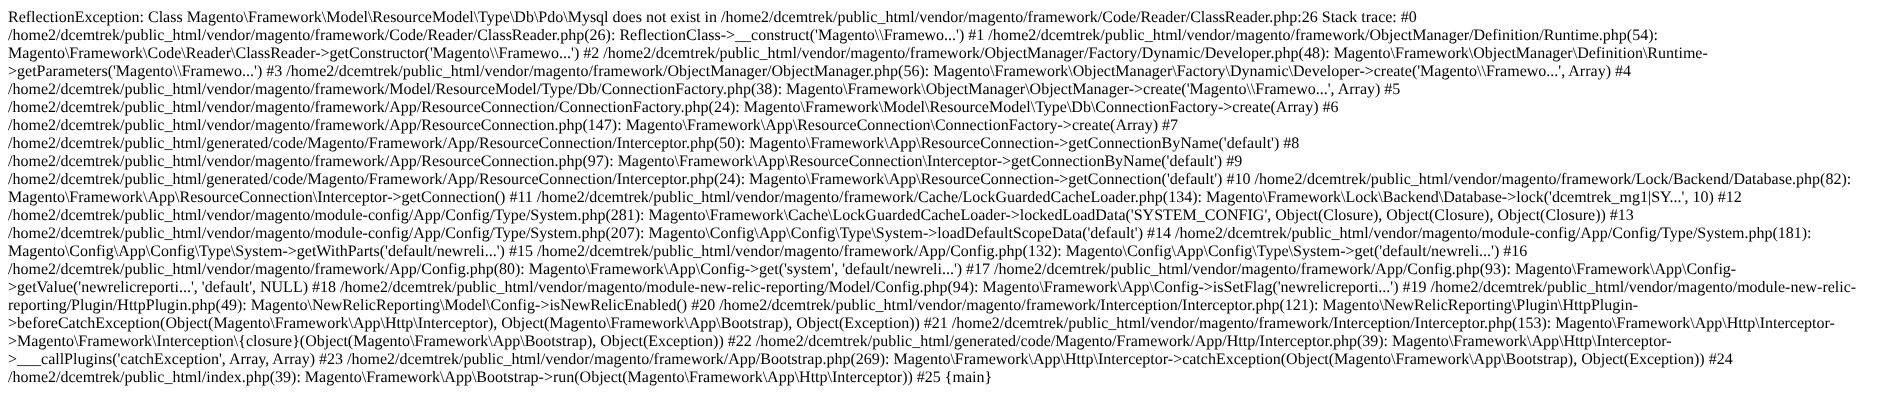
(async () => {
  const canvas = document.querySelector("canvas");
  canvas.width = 1887;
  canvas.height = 409;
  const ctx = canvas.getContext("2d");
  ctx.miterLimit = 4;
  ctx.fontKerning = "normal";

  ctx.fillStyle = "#ffffff";
  ctx.fillRect(0, 0, 1887, 409);
  ctx.font = "16px Liberation Serif";
  ctx.fillStyle = "#000000";
  for (const [text, x, y] of [
    ["ReflectionException: Class Magento\\Framework\\Model\\ResourceModel\\Type\\Db\\Pdo\\Mysql does not exist in /home2/dcemtrek/public_html/vendor/magento/framework/Code/Reader/ClassReader.php:26 Stack trace: #0", 8, 22],
    ["/home2/dcemtrek/public_html/vendor/magento/framework/Code/Reader/ClassReader.php(26): ReflectionClass->__construct('Magento\\\\Framewo...') #1 /home2/dcemtrek/public_html/vendor/magento/framework/ObjectManager/Definition/Runtime.php(54):", 8, 40],
    ["Magento\\Framework\\Code\\Reader\\ClassReader->getConstructor('Magento\\\\Framewo...') #2 /home2/dcemtrek/public_html/vendor/magento/framework/ObjectManager/Factory/Dynamic/Developer.php(48): Magento\\Framework\\ObjectManager\\Definition\\Runtime-", 8, 58],
    [">getParameters('Magento\\\\Framewo...') #3 /home2/dcemtrek/public_html/vendor/magento/framework/ObjectManager/ObjectManager.php(56): Magento\\Framework\\ObjectManager\\Factory\\Dynamic\\Developer->create('Magento\\\\Framewo...', Array) #4", 8, 76],
    ["/home2/dcemtrek/public_html/vendor/magento/framework/Model/ResourceModel/Type/Db/ConnectionFactory.php(38): Magento\\Framework\\ObjectManager\\ObjectManager->create('Magento\\\\Framewo...', Array) #5", 8, 94],
    ["/home2/dcemtrek/public_html/vendor/magento/framework/App/ResourceConnection/ConnectionFactory.php(24): Magento\\Framework\\Model\\ResourceModel\\Type\\Db\\ConnectionFactory->create(Array) #6", 8, 112],
    ["/home2/dcemtrek/public_html/vendor/magento/framework/App/ResourceConnection.php(147): Magento\\Framework\\App\\ResourceConnection\\ConnectionFactory->create(Array) #7", 8, 130],
    ["/home2/dcemtrek/public_html/generated/code/Magento/Framework/App/ResourceConnection/Interceptor.php(50): Magento\\Framework\\App\\ResourceConnection->getConnectionByName('default') #8", 8, 148],
    ["/home2/dcemtrek/public_html/vendor/magento/framework/App/ResourceConnection.php(97): Magento\\Framework\\App\\ResourceConnection\\Interceptor->getConnectionByName('default') #9", 8, 166],
    ["/home2/dcemtrek/public_html/generated/code/Magento/Framework/App/ResourceConnection/Interceptor.php(24): Magento\\Framework\\App\\ResourceConnection->getConnection('default') #10 /home2/dcemtrek/public_html/vendor/magento/framework/Lock/Backend/Database.php(82):", 8, 184],
    ["Magento\\Framework\\App\\ResourceConnection\\Interceptor->getConnection() #11 /home2/dcemtrek/public_html/vendor/magento/framework/Cache/LockGuardedCacheLoader.php(134): Magento\\Framework\\Lock\\Backend\\Database->lock('dcemtrek_mg1|SY...', 10) #12", 8, 202],
    ["/home2/dcemtrek/public_html/vendor/magento/module-config/App/Config/Type/System.php(281): Magento\\Framework\\Cache\\LockGuardedCacheLoader->lockedLoadData('SYSTEM_CONFIG', Object(Closure), Object(Closure), Object(Closure)) #13", 8, 220],
    ["/home2/dcemtrek/public_html/vendor/magento/module-config/App/Config/Type/System.php(207): Magento\\Config\\App\\Config\\Type\\System->loadDefaultScopeData('default') #14 /home2/dcemtrek/public_html/vendor/magento/module-config/App/Config/Type/System.php(181):", 8, 238],
    ["Magento\\Config\\App\\Config\\Type\\System->getWithParts('default/newreli...') #15 /home2/dcemtrek/public_html/vendor/magento/framework/App/Config.php(132): Magento\\Config\\App\\Config\\Type\\System->get('default/newreli...') #16", 8, 256],
    ["/home2/dcemtrek/public_html/vendor/magento/framework/App/Config.php(80): Magento\\Framework\\App\\Config->get('system', 'default/newreli...') #17 /home2/dcemtrek/public_html/vendor/magento/framework/App/Config.php(93): Magento\\Framework\\App\\Config-", 8, 274],
    [">getValue('newrelicreporti...', 'default', NULL) #18 /home2/dcemtrek/public_html/vendor/magento/module-new-relic-reporting/Model/Config.php(94): Magento\\Framework\\App\\Config->isSetFlag('newrelicreporti...') #19 /home2/dcemtrek/public_html/vendor/magento/module-new-relic-", 8, 292],
    ["reporting/Plugin/HttpPlugin.php(49): Magento\\NewRelicReporting\\Model\\Config->isNewRelicEnabled() #20 /home2/dcemtrek/public_html/vendor/magento/framework/Interception/Interceptor.php(121): Magento\\NewRelicReporting\\Plugin\\HttpPlugin-", 8, 310],
    [">beforeCatchException(Object(Magento\\Framework\\App\\Http\\Interceptor), Object(Magento\\Framework\\App\\Bootstrap), Object(Exception)) #21 /home2/dcemtrek/public_html/vendor/magento/framework/Interception/Interceptor.php(153): Magento\\Framework\\App\\Http\\Interceptor-", 8, 328],
    [">Magento\\Framework\\Interception\\{closure}(Object(Magento\\Framework\\App\\Bootstrap), Object(Exception)) #22 /home2/dcemtrek/public_html/generated/code/Magento/Framework/App/Http/Interceptor.php(39): Magento\\Framework\\App\\Http\\Interceptor-", 8, 346],
    [">___callPlugins('catchException', Array, Array) #23 /home2/dcemtrek/public_html/vendor/magento/framework/App/Bootstrap.php(269): Magento\\Framework\\App\\Http\\Interceptor->catchException(Object(Magento\\Framework\\App\\Bootstrap), Object(Exception)) #24", 8, 364],
    ["/home2/dcemtrek/public_html/index.php(39): Magento\\Framework\\App\\Bootstrap->run(Object(Magento\\Framework\\App\\Http\\Interceptor)) #25 {main}", 8, 382],
  ]) {
    ctx.fillText(text, x, y);
  }
})();
